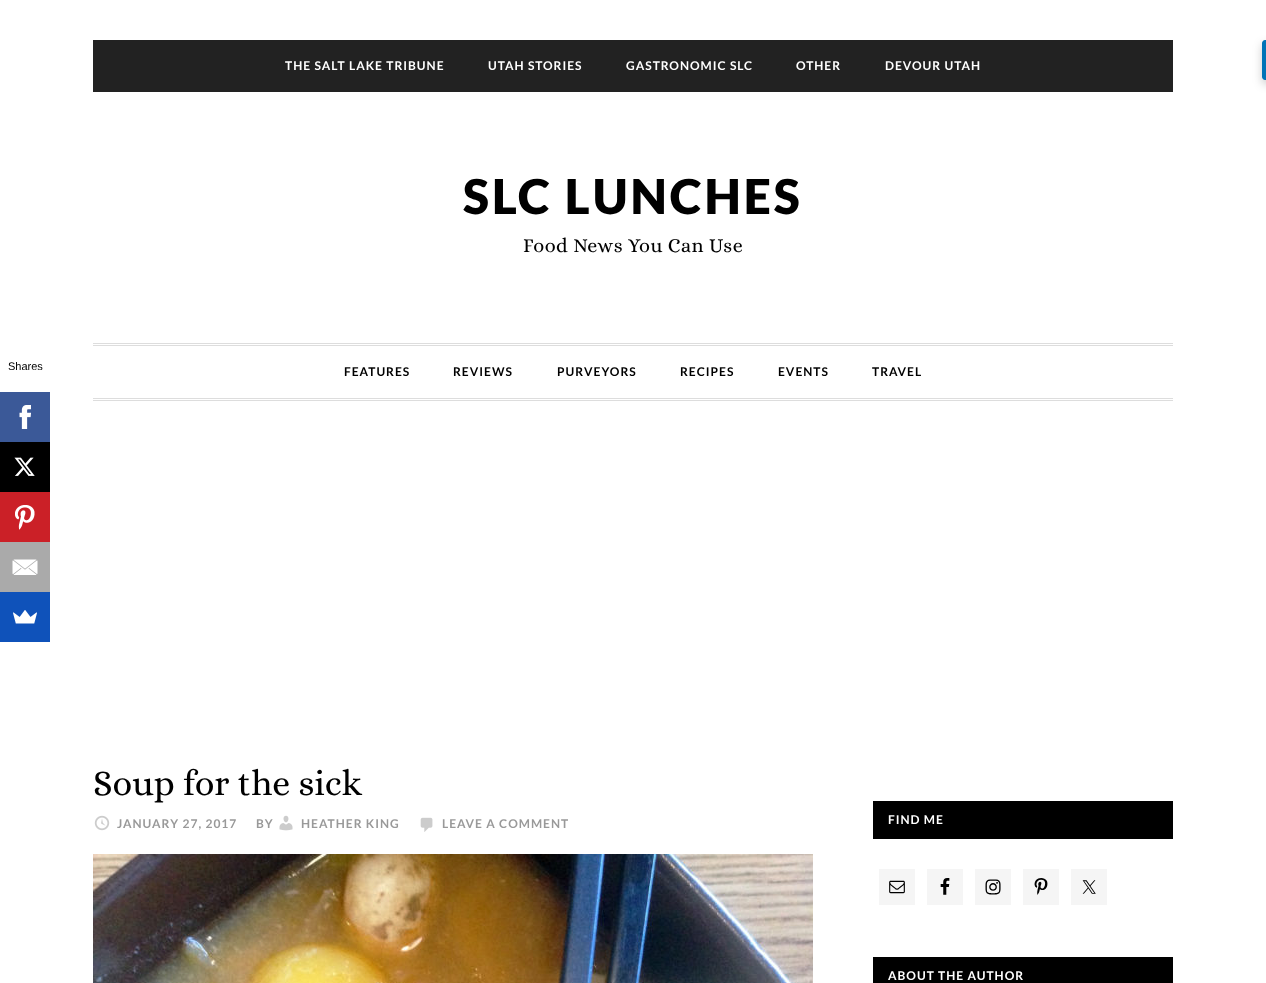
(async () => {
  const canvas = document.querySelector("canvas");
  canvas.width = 1266;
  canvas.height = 983;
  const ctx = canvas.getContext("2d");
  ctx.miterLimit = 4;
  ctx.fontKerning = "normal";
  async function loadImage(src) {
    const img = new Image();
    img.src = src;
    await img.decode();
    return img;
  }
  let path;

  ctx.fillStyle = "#ffffff";
  ctx.fillRect(0, 0, 1266, 983);
  ctx.fillStyle = "#3b5998";
  ctx.fillRect(0, 392, 50, 50);
  ctx.drawImage(await loadImage("img/1.png"), 19, 405, 12, 24);
  ctx.fillStyle = "#000000";
  ctx.fillRect(0, 442, 50, 50);
  ctx.drawImage(await loadImage("img/2.png"), 14, 457, 21, 19);
  ctx.fillStyle = "#cb2027";
  ctx.fillRect(0, 492, 50, 50);
  ctx.drawImage(await loadImage("img/3.png"), 15, 505, 20, 25);
  ctx.fillStyle = "#aaaaaa";
  ctx.fillRect(0, 542, 50, 50);
  ctx.drawImage(await loadImage("img/4.png"), 12, 559, 26, 16);
  ctx.fillStyle = "#0f52ba";
  ctx.fillRect(0, 592, 50, 50);
  ctx.drawImage(await loadImage("img/5.png"), 13, 610, 24, 14);
  for (const [x, y, w, h, color] of [
    [93, 40, 1080, 52, "#222222"],
    [93, 343, 1080, 1, "#dddddd"],
    [93, 345, 1080, 1, "#dddddd"],
    [93, 398, 1080, 1, "#dddddd"],
    [93, 400, 1080, 1, "#dddddd"],
  ]) {
    ctx.fillStyle = color;
    ctx.fillRect(x, y, w, h);
  }
  ctx.drawImage(await loadImage("img/6.png"), 94, 815, 16, 16);
  ctx.drawImage(await loadImage("img/7.png"), 279, 815, 14, 16);
  ctx.drawImage(await loadImage("img/8.png"), 420, 817, 13, 15);
  ctx.drawImage(await loadImage("img/9.png"), 93, 854, 720, 129);
  ctx.fillStyle = "#000000";
  ctx.fillRect(873, 801, 300, 38);
  ctx.fillStyle = "#f5f5f5";
  ctx.fillRect(879, 869, 36, 36);
  ctx.drawImage(await loadImage("img/10.png"), 889, 880, 16, 14);
  ctx.fillRect(927, 869, 36, 36);
  ctx.drawImage(await loadImage("img/11.png"), 940, 878, 10, 17);
  ctx.fillRect(975, 869, 36, 36);
  ctx.drawImage(await loadImage("img/12.png"), 985, 879, 16, 16);
  ctx.fillRect(1023, 869, 36, 36);
  ctx.drawImage(await loadImage("img/13.png"), 1034, 878, 14, 17);
  ctx.fillRect(1071, 869, 36, 36);
  ctx.drawImage(await loadImage("img/14.png"), 1082, 880, 14, 14);
  ctx.fillStyle = "#000000";
  ctx.fillRect(873, 957, 300, 26);
  ctx.fillStyle = "rgba(0, 0, 0, 0.2)";
  ctx.filter = "blur(5px)";
  ctx.beginPath();
  ctx.roundRect(1262, 44, 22, 40, 3);
  ctx.fill();
  ctx.filter = "none";
  ctx.fillStyle = "#0073b7";
  path = new Path2D("M1265 40H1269V80H1265C1263.5 80 1262 78.5 1262 77V43C1262 41.5 1263.5 40 1265 40Z");
  ctx.fill(path);
  ctx.font = "11px Liberation Sans";
  ctx.fillStyle = "#000000";
  ctx.fillText("Shares", 8, 370);
  ctx.letterSpacing = "1px";
  ctx.font = "bold 12px Lato";
  ctx.fillStyle = "#ffffff";
  for (const [text, x, y] of [
    ["THE SALT LAKE TRIBUNE", 285, 70],
    ["UTAH STORIES", 488, 70],
    ["GASTRONOMIC SLC", 626, 70],
    ["OTHER", 796, 70],
    ["DEVOUR UTAH", 885, 70],
  ]) {
    ctx.fillText(text, x, y);
  }
  ctx.letterSpacing = "3px";
  ctx.font = "900 48px Lato";
  ctx.fillStyle = "#000000";
  ctx.fillText("SLC LUNCHES", 463, 214);
  ctx.letterSpacing = "0.5px";
  ctx.font = "20px Alice";
  ctx.fillText("Food News You Can Use", 523, 252);
  ctx.letterSpacing = "1px";
  ctx.font = "bold 12px Lato";
  for (const [text, x, y] of [
    ["FEATURES", 344, 376],
    ["REVIEWS", 453, 376],
    ["PURVEYORS", 557, 376],
    ["RECIPES", 680, 376],
    ["EVENTS", 778, 376],
    ["TRAVEL", 872, 376],
  ]) {
    ctx.fillText(text, x, y);
  }
  ctx.letterSpacing = "0px";
  ctx.font = "36px Alice";
  ctx.fillText("Soup for the sick", 93, 795);
  ctx.letterSpacing = "1px";
  ctx.font = "bold 12px Lato";
  ctx.fillStyle = "#999999";
  for (const [text, x, y] of [
    ["JANUARY 27, 2017", 117, 828],
    ["BY", 256, 828],
    ["HEATHER KING", 301, 828],
    ["LEAVE A COMMENT", 442, 828],
  ]) {
    ctx.fillText(text, x, y);
  }
  ctx.fillStyle = "#ffffff";
  ctx.fillText("FIND ME", 888, 824);
  ctx.fillText("ABOUT THE AUTHOR", 888, 980);
})();
